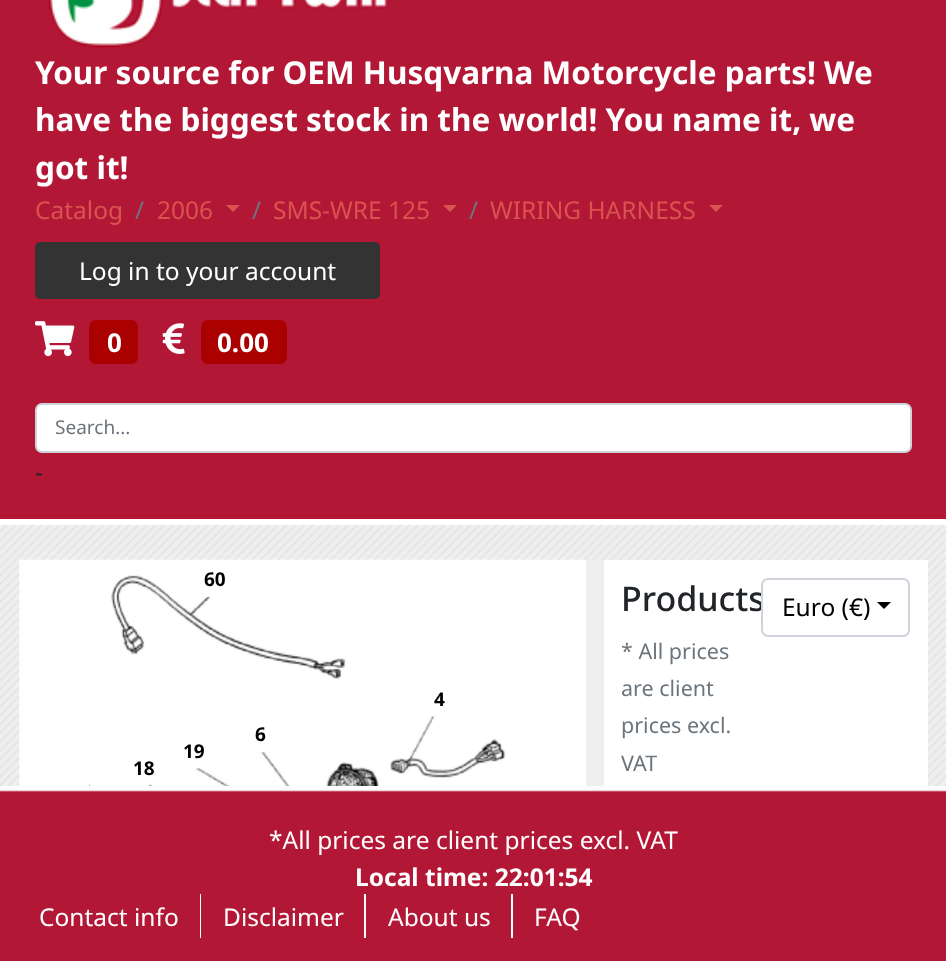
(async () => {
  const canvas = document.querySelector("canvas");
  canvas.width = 946;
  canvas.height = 961;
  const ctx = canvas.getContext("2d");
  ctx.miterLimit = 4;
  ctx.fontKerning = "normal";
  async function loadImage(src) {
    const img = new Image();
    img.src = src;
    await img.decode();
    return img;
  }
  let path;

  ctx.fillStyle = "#ffffff";
  ctx.fillRect(0, 0, 946, 961);
  ctx.drawImage(await loadImage("img/1.png"), 0, 525, 946, 261);
  ctx.fillStyle = "#b31736";
  ctx.fillRect(0, 0, 946, 519);
  ctx.drawImage(await loadImage("img/2.png"), 48, 0, 341, 48);
  ctx.fillStyle = "#d9534f";
  path = new Path2D("M226 205H240L233 212Z");
  ctx.fill(path);
  path = new Path2D("M443 205H457L450 212Z");
  ctx.fill(path);
  path = new Path2D("M709 205H723L716 212Z");
  ctx.fill(path);
  ctx.fillStyle = "#333333";
  ctx.beginPath();
  ctx.roundRect(35, 242, 345, 57, 5);
  ctx.fill();
  ctx.drawImage(await loadImage("img/3.png"), 35, 321, 40, 36);
  ctx.fillStyle = "#aa0000";
  ctx.beginPath();
  ctx.roundRect(89, 320, 49, 44, 7);
  ctx.fill();
  ctx.drawImage(await loadImage("img/4.png"), 162, 323, 23, 31);
  ctx.beginPath();
  ctx.roundRect(201, 320, 86, 44, 7);
  ctx.fill();
  ctx.fillStyle = "#ffffff";
  ctx.beginPath();
  ctx.roundRect(37, 404, 873, 48, 4);
  ctx.fill();
  ctx.beginPath();
  ctx.roundRect(36, 404, 875, 48, 6);
  ctx.strokeStyle = "#ced4da";
  ctx.lineWidth = 2;
  ctx.stroke();
  ctx.fillStyle = "#eeeeee";
  ctx.fillRect(586, 560, 18, 226);
  ctx.drawImage(await loadImage("img/5.png"), 19, 559, 568, 227);
  for (const [x, y, w, h, color] of [
    [221, 574, 5, 16, "#ffffff"],
    [199, 746, 6, 17, "#ffffff"],
    [150, 763, 4, 16, "#ffffff"],
    [85, 781, 4, 5, "#ffffff"],
    [604, 560, 324, 226, "#ffffff"],
    [0, 790, 946, 171, "#b31736"],
  ]) {
    ctx.fillStyle = color;
    ctx.fillRect(x, y, w, h);
  }
  ctx.drawImage(await loadImage("img/6.png"), 0, 786, 946, 6);
  for (const [x, y, w, h, color] of [
    [200, 894, 1, 44, "#ffffff"],
    [364, 894, 2, 44, "#ffffff"],
    [511, 894, 2, 44, "#ffffff"],
  ]) {
    ctx.fillStyle = color;
    ctx.fillRect(x, y, w, h);
  }
  ctx.font = "bold 31.5px Noto Sans";
  for (const [text, x, y] of [
    ["Your source for OEM Husqvarna Motorcycle parts! We", 35, 84],
    ["have the biggest stock in the world! You name it, we", 35, 131],
    ["got it!", 35, 179],
  ]) {
    ctx.fillText(text, x, y);
  }
  ctx.font = "24.5px Noto Sans";
  ctx.fillStyle = "#d9534f";
  ctx.fillText("Catalog", 35, 219);
  ctx.fillStyle = "#6c757d";
  ctx.fillText("/", 135, 219);
  ctx.fillStyle = "#d9534f";
  ctx.fillText("2006", 157, 219);
  ctx.fillStyle = "#6c757d";
  ctx.fillText("/", 252, 219);
  ctx.fillStyle = "#d9534f";
  ctx.fillText("SMS-WRE 125", 273, 219);
  ctx.fillStyle = "#6c757d";
  ctx.fillText("/", 469, 219);
  ctx.fillStyle = "#d9534f";
  ctx.fillText("WIRING HARNESS", 490, 219);
  ctx.fillStyle = "#ffffff";
  ctx.fillText("Log in to your account", 79, 280);
  ctx.font = "bold 26px Noto Sans";
  ctx.fillText("0", 107, 352);
  ctx.fillText("0.00", 217, 352);
  ctx.font = "19px Noto Sans";
  ctx.fillStyle = "#6c757d";
  ctx.fillText("Search...", 55, 434);
  ctx.font = "24.5px Noto Sans";
  ctx.fillStyle = "#212529";
  ctx.fillText("-", 35, 481);
  ctx.font = "bold 19px Noto Sans";
  ctx.fillStyle = "#000000";
  for (const [text, x, y] of [
    ["60", 204, 586],
    ["4", 434, 706],
    ["6", 255, 741],
    ["19", 183, 758],
    ["18", 133, 775],
  ]) {
    ctx.fillText(text, x, y);
  }
  ctx.font = "500 34px Noto Sans";
  ctx.fillStyle = "#212529";
  ctx.fillText("Products", 621, 611);
  ctx.font = "21.5px Noto Sans";
  ctx.fillStyle = "#6c757d";
  for (const [text, x, y] of [
    ["* All prices", 621, 659],
    ["are client", 621, 696],
    ["prices excl.", 621, 733],
    ["VAT", 621, 771],
  ]) {
    ctx.fillText(text, x, y);
  }
  ctx.fillStyle = "#ffffff";
  ctx.beginPath();
  ctx.roundRect(762, 579, 147, 57, 6);
  ctx.fill();
  ctx.stroke();
  ctx.font = "24.5px Noto Sans";
  ctx.fillStyle = "#000000";
  ctx.fillText("Euro (€)", 782, 616);
  path = new Path2D("M877 602H891L884 609Z");
  ctx.fill(path);
  ctx.fillStyle = "#ffffff";
  ctx.fillText("*All prices are client prices excl. VAT", 269, 849);
  ctx.font = "bold 24.5px Noto Sans";
  ctx.fillText("Local time: 22:01:54", 355, 886);
  ctx.font = "24.5px Noto Sans";
  for (const [text, x, y] of [
    ["Contact info", 39, 926],
    ["Disclaimer", 223, 926],
    ["About us", 388, 926],
    ["FAQ", 534, 926],
  ]) {
    ctx.fillText(text, x, y);
  }
})();
